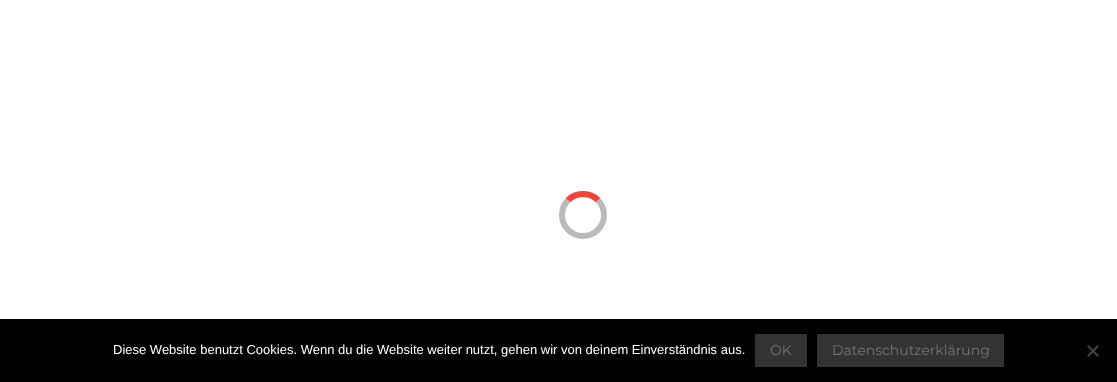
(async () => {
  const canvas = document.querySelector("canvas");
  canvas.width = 1117;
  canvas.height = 382;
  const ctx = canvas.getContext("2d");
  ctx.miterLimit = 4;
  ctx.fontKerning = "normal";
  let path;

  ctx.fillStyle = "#ffffff";
  ctx.fillRect(0, 0, 1117, 382);
  ctx.beginPath();
  ctx.arc(583, 215, 21, 0, Math.PI * 2);
  ctx.strokeStyle = "#bababa";
  ctx.lineWidth = 6;
  ctx.stroke();
  path = new Path2D("M568 200C576 192 590 192 598 200");
  ctx.strokeStyle = "#f54337";
  ctx.stroke(path);
  for (const [x, y, w, h, color] of [
    [0, 319, 1117, 63, "#000000"],
    [755, 334, 52, 33, "#333333"],
    [817, 334, 187, 33, "#333333"],
  ]) {
    ctx.fillStyle = color;
    ctx.fillRect(x, y, w, h);
  }
  ctx.fillStyle = "#404040";
  path = new Path2D("M1097.5 345L1099 346.5L1088.5 357L1087 355.5Z");
  ctx.fill(path);
  path = new Path2D("M1087 346.5L1088.5 345L1099 355.5L1097.5 357Z");
  ctx.fill(path);
  ctx.font = "13px Liberation Sans";
  ctx.fillStyle = "#ffffff";
  ctx.fillText("Diese Website benutzt Cookies. Wenn du die Website weiter nutzt, gehen wir von deinem Einverständnis aus.", 113, 354);
  ctx.font = "100 14px Montserrat";
  ctx.fillStyle = "#777777";
  ctx.fillText("OK", 770, 355);
  ctx.fillText("Datenschutzerklärung", 832, 355);
})();
